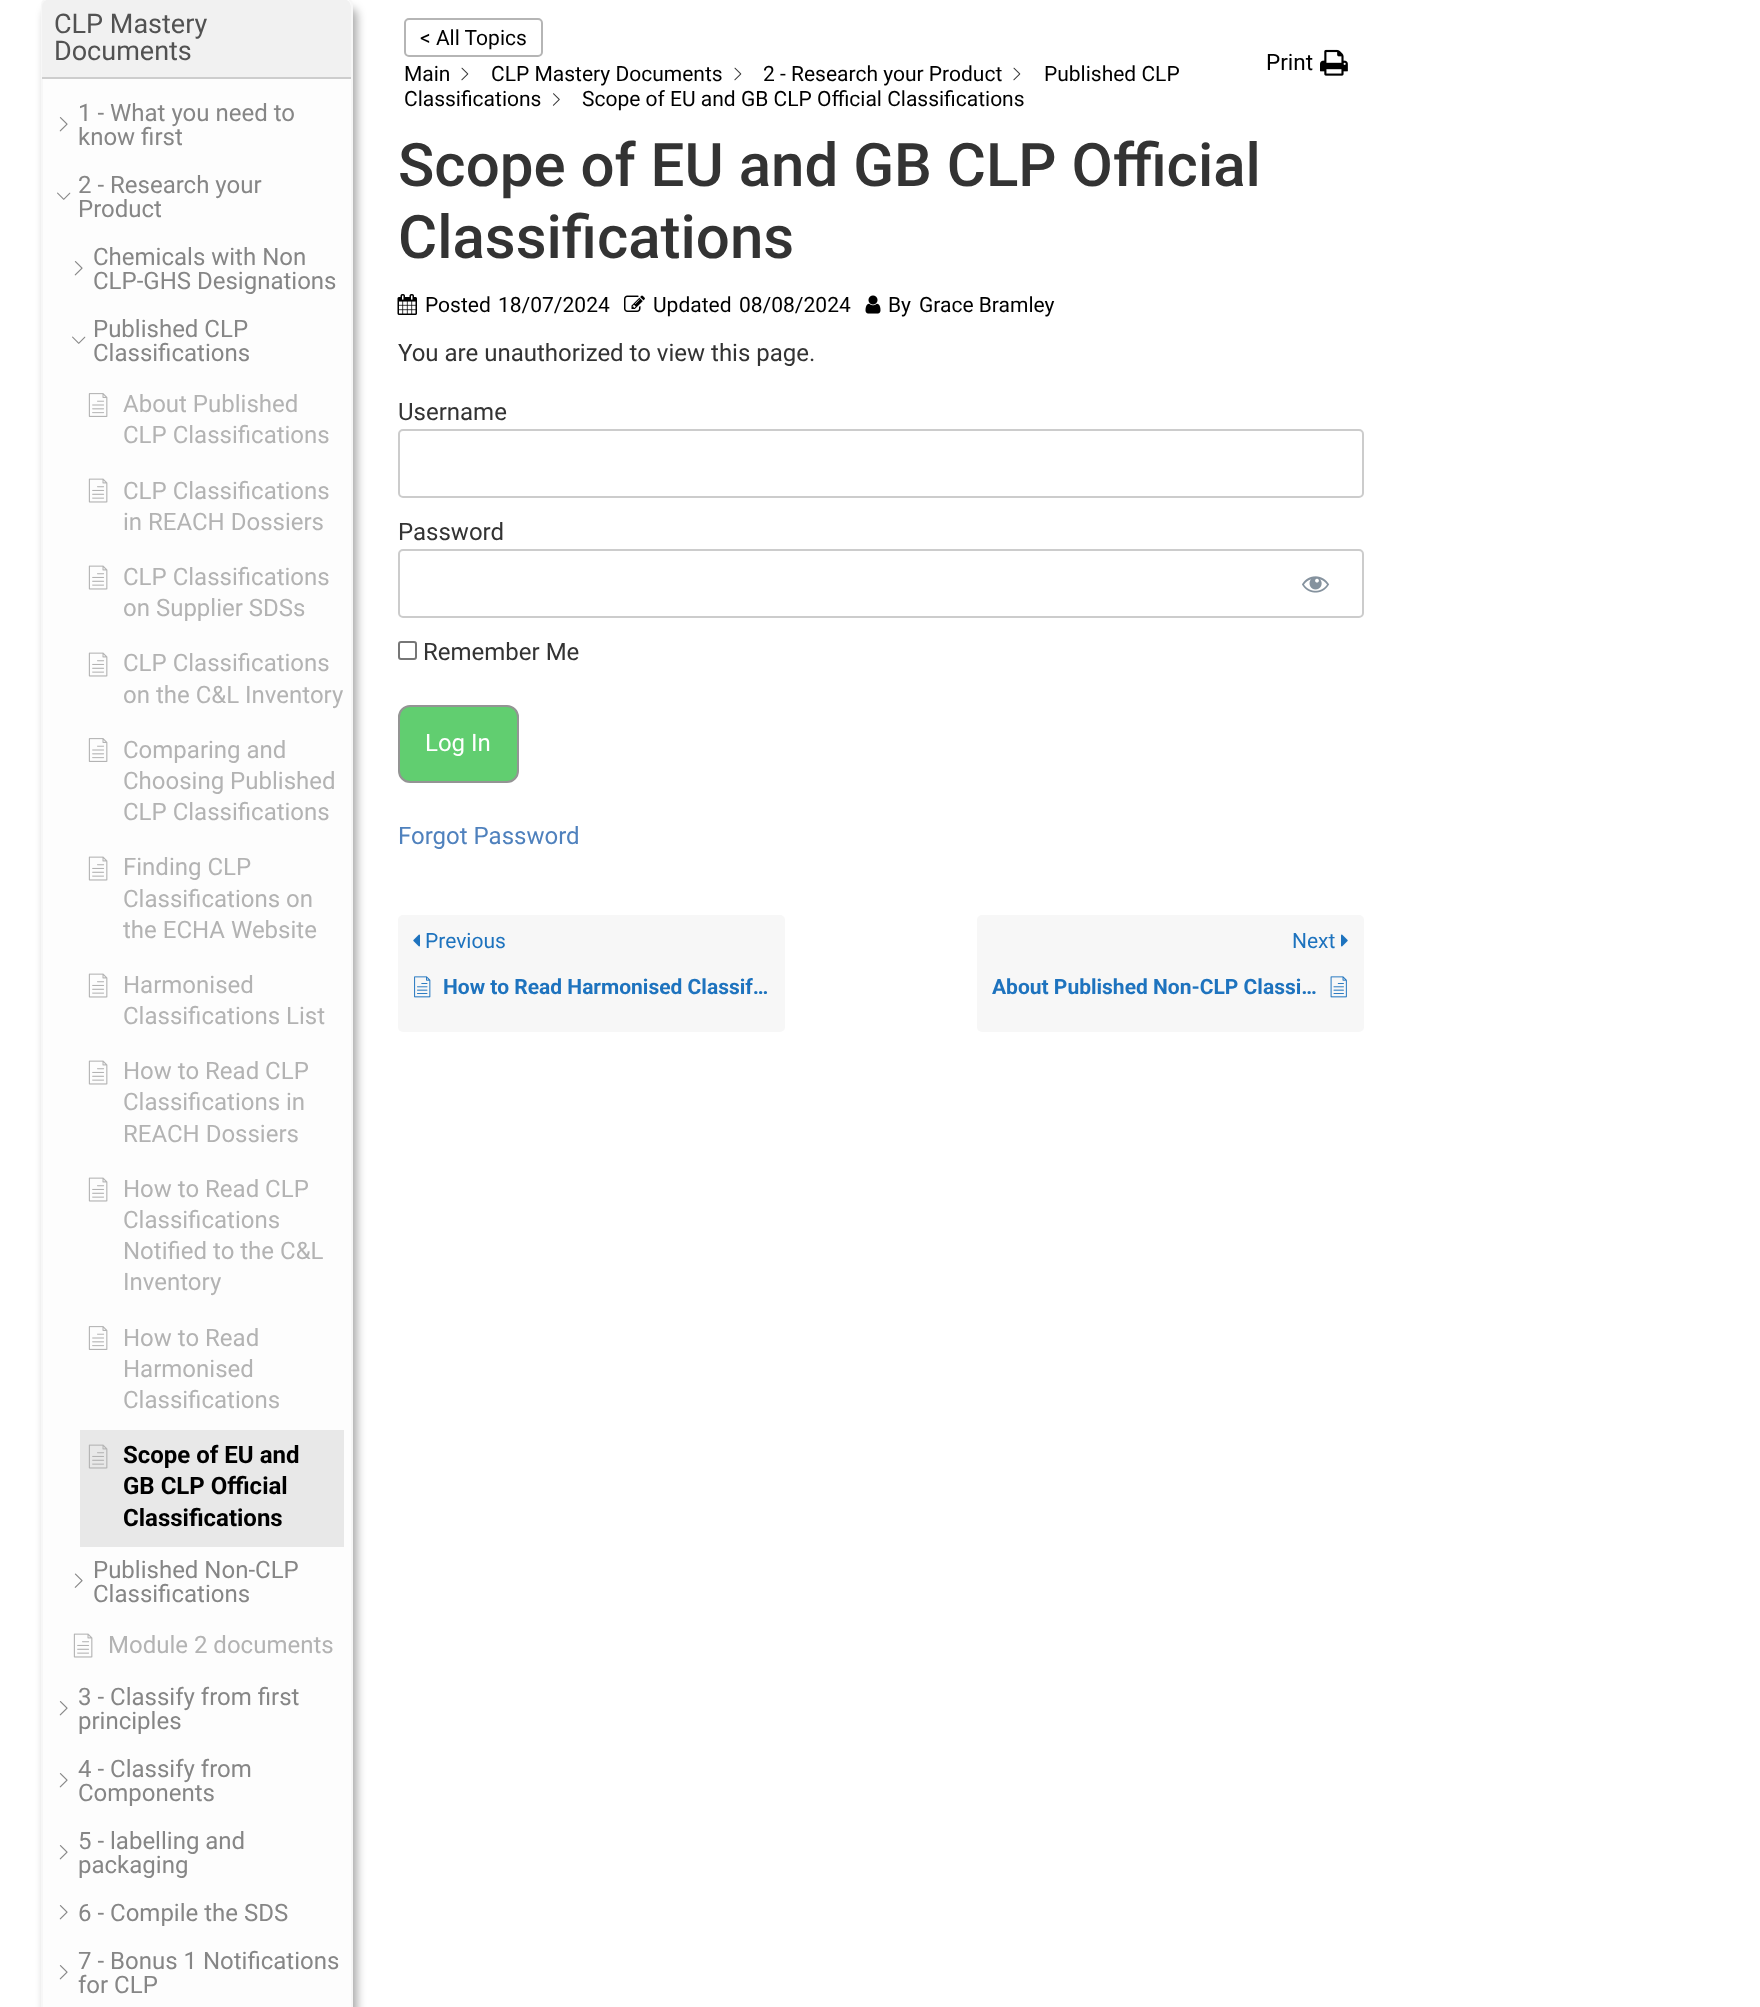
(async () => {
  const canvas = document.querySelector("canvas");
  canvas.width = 1760;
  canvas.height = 2007;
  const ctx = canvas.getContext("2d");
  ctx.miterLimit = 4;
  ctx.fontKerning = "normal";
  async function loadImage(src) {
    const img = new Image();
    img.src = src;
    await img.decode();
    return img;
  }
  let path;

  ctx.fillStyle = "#ffffff";
  ctx.fillRect(0, 0, 1760, 2007);
  ctx.fillStyle = "rgba(0, 0, 0, 0.34)";
  ctx.filter = "blur(5px)";
  ctx.beginPath();
  ctx.roundRect(45, 8, 312, 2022, 8);
  ctx.fill();
  ctx.filter = "none";
  ctx.fillStyle = "#fdfdfd";
  ctx.beginPath();
  ctx.roundRect(42, -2, 310, 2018, 7);
  ctx.fill();
  ctx.strokeStyle = "#f7f7f7";
  ctx.lineWidth = 2;
  ctx.stroke();
  ctx.fillStyle = "#f1f1f1";
  path = new Path2D("M50-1H343C347.5-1 351 2.5 351 7V78H42V7C42 2.5 45.5-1 50-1Z");
  ctx.fill(path);
  ctx.fillStyle = "#cdcdcd";
  ctx.fillRect(42, 77, 309, 2);
  ctx.drawImage(await loadImage("img/1.png"), 59, 117, 9, 15);
  ctx.drawImage(await loadImage("img/2.png"), 57, 192, 14, 8);
  ctx.drawImage(await loadImage("img/1.png"), 74, 261, 9, 15);
  ctx.drawImage(await loadImage("img/2.png"), 72, 336, 14, 8);
  ctx.drawImage(await loadImage("img/3.png"), 88, 393, 20, 24);
  ctx.drawImage(await loadImage("img/4.png"), 88, 478, 20, 25);
  ctx.drawImage(await loadImage("img/4.png"), 88, 565, 20, 25);
  ctx.drawImage(await loadImage("img/4.png"), 88, 652, 20, 25);
  ctx.drawImage(await loadImage("img/3.png"), 88, 738, 20, 24);
  ctx.drawImage(await loadImage("img/4.png"), 88, 856, 20, 25);
  ctx.drawImage(await loadImage("img/4.png"), 88, 973, 20, 25);
  ctx.drawImage(await loadImage("img/4.png"), 88, 1060, 20, 25);
  ctx.drawImage(await loadImage("img/4.png"), 88, 1177, 20, 25);
  ctx.drawImage(await loadImage("img/3.png"), 88, 1326, 20, 24);
  ctx.fillStyle = "#e8e8e8";
  ctx.fillRect(80, 1430, 264, 117);
  ctx.drawImage(await loadImage("img/5.png"), 88, 1444, 20, 25);
  ctx.drawImage(await loadImage("img/6.png"), 74, 1573, 9, 15);
  ctx.drawImage(await loadImage("img/4.png"), 73, 1633, 20, 25);
  ctx.drawImage(await loadImage("img/1.png"), 59, 1701, 9, 15);
  ctx.drawImage(await loadImage("img/1.png"), 59, 1773, 9, 15);
  ctx.drawImage(await loadImage("img/1.png"), 59, 1845, 9, 15);
  ctx.drawImage(await loadImage("img/1.png"), 59, 1905, 9, 15);
  ctx.drawImage(await loadImage("img/1.png"), 59, 1965, 9, 15);
  ctx.beginPath();
  ctx.roundRect(405, 19, 137, 37, 4);
  ctx.strokeStyle = "#b5b5b5";
  ctx.stroke();
  ctx.drawImage(await loadImage("img/7.png"), 552, 93, 8, 13);
  ctx.drawImage(await loadImage("img/8.png"), 461, 67, 8, 14);
  ctx.drawImage(await loadImage("img/8.png"), 734, 67, 8, 14);
  ctx.drawImage(await loadImage("img/8.png"), 1013, 67, 8, 14);
  ctx.drawImage(await loadImage("img/9.png"), 1320, 49, 28, 27);
  ctx.drawImage(await loadImage("img/10.png"), 397, 294, 20, 21);
  ctx.drawImage(await loadImage("img/11.png"), 624, 295, 21, 17);
  ctx.drawImage(await loadImage("img/12.png"), 865, 295, 16, 19);
  ctx.beginPath();
  ctx.roundRect(399, 430, 964, 67, 4);
  ctx.strokeStyle = "#cccccc";
  ctx.stroke();
  ctx.beginPath();
  ctx.roundRect(399, 550, 964, 67, 4);
  ctx.stroke();
  ctx.drawImage(await loadImage("img/13.png"), 1302, 576, 28, 17);
  ctx.beginPath();
  ctx.roundRect(399, 642, 17, 17, 2);
  ctx.strokeStyle = "#767676";
  ctx.stroke();
  ctx.fillStyle = "#61ce70";
  ctx.beginPath();
  ctx.roundRect(399, 706, 119, 76, 11);
  ctx.fill();
  ctx.strokeStyle = "#949494";
  ctx.stroke();
  ctx.fillStyle = "#f7f7f7";
  ctx.beginPath();
  ctx.roundRect(398, 915, 387, 117, 5);
  ctx.fill();
  ctx.drawImage(await loadImage("img/14.png"), 413, 934, 7, 13);
  ctx.drawImage(await loadImage("img/15.png"), 414, 976, 17, 22);
  ctx.beginPath();
  ctx.roundRect(977, 915, 387, 117, 5);
  ctx.fill();
  ctx.drawImage(await loadImage("img/16.png"), 1341, 934, 7, 13);
  ctx.drawImage(await loadImage("img/17.png"), 1330, 976, 17, 22);
  ctx.font = "27px Roboto";
  ctx.fillStyle = "#525252";
  ctx.fillText("CLP Mastery", 54, 33);
  ctx.fillText("Documents", 54, 60);
  ctx.font = "24px Roboto";
  ctx.fillStyle = "#868686";
  for (const [text, x, y] of [
    ["1 - What you need to", 78, 121],
    ["know first", 78, 145],
    ["2 - Research your", 78, 193],
    ["Product", 78, 217],
    ["Chemicals with Non", 93, 265],
    ["CLP-GHS Designations", 93, 289],
    ["Published CLP", 93, 337],
    ["Classifications", 93, 361],
  ]) {
    ctx.fillText(text, x, y);
  }
  ctx.fillStyle = "#b3b3b3";
  for (const [text, x, y] of [
    ["About Published", 123, 412],
    ["CLP Classifications", 123, 443],
    ["CLP Classifications", 123, 499],
    ["in REACH Dossiers", 123, 530],
    ["CLP Classifications", 123, 585],
    ["on Supplier SDSs", 123, 616],
    ["CLP Classifications", 123, 671],
    ["on the C&L Inventory", 123, 703],
    ["Comparing and", 123, 758],
    ["Choosing Published", 123, 789],
    ["CLP Classifications", 123, 820],
    ["Finding CLP", 123, 875],
    ["Classifications on", 123, 907],
    ["the ECHA Website", 123, 938],
    ["Harmonised", 123, 993],
    ["Classifications List", 123, 1024],
    ["How to Read CLP", 123, 1079],
    ["Classifications in", 123, 1110],
    ["REACH Dossiers", 123, 1142],
    ["How to Read CLP", 123, 1197],
    ["Classifications", 123, 1228],
    ["Notified to the C&L", 123, 1259],
    ["Inventory", 123, 1290],
    ["How to Read", 123, 1346],
    ["Harmonised", 123, 1377],
    ["Classifications", 123, 1408],
  ]) {
    ctx.fillText(text, x, y);
  }
  ctx.font = "bold 24px Roboto";
  ctx.fillStyle = "#000000";
  for (const [text, x, y] of [
    ["Scope of EU and", 123, 1463],
    ["GB CLP Official", 123, 1494],
    ["Classifications", 123, 1526],
  ]) {
    ctx.fillText(text, x, y);
  }
  ctx.font = "24px Roboto";
  ctx.fillStyle = "#868686";
  ctx.fillText("Published Non-CLP", 93, 1578);
  ctx.fillText("Classifications", 93, 1602);
  ctx.fillStyle = "#b3b3b3";
  ctx.fillText("Module 2 documents", 108, 1653);
  ctx.fillStyle = "#868686";
  for (const [text, x, y] of [
    ["3 - Classify from first", 78, 1705],
    ["principles", 78, 1729],
    ["4 - Classify from", 78, 1777],
    ["Components", 78, 1801],
    ["5 - labelling and", 78, 1849],
    ["packaging", 78, 1873],
    ["6 - Compile the SDS", 78, 1921],
    ["7 - Bonus 1 Notifications", 78, 1969],
    ["for CLP", 78, 1993],
  ]) {
    ctx.fillText(text, x, y);
  }
  ctx.font = "21px Roboto";
  ctx.fillStyle = "#000000";
  for (const [text, x, y] of [
    ["< All Topics", 420, 45],
    ["Published CLP", 1044, 81],
    ["Classifications", 404, 106],
    ["Main", 404, 81],
    ["CLP Mastery Documents", 491, 81],
    ["2 - Research your Product", 763, 81],
    ["Scope of EU and GB CLP Official Classifications", 582, 106],
  ]) {
    ctx.fillText(text, x, y);
  }
  ctx.font = "22.5px Roboto";
  ctx.fillText("Print", 1266, 70);
  ctx.font = "500 60px Roboto";
  ctx.fillStyle = "#333333";
  ctx.fillText("Scope of EU and GB CLP Official", 398, 186);
  ctx.fillText("Classifications", 398, 258);
  ctx.font = "21px Roboto";
  ctx.fillStyle = "#000000";
  for (const [text, x, y] of [
    ["Posted", 425, 312],
    ["18/07/2024", 498, 312],
    ["Updated", 653, 312],
    ["08/08/2024", 739, 312],
    ["By", 888, 312],
    ["Grace Bramley", 919, 312],
  ]) {
    ctx.fillText(text, x, y);
  }
  ctx.font = "24px Roboto";
  ctx.fillStyle = "#333333";
  for (const [text, x, y] of [
    ["You are unauthorized to view this page.", 398, 361],
    ["Username", 398, 420],
    ["Password", 398, 540],
    ["Remember Me", 423, 660],
  ]) {
    ctx.fillText(text, x, y);
  }
  ctx.fillStyle = "#ffffff";
  ctx.fillText("Log In", 425, 751);
  ctx.fillStyle = "#4f81bd";
  ctx.fillText("Forgot Password", 398, 844);
  ctx.font = "21px Roboto";
  ctx.fillStyle = "#1e73be";
  ctx.fillText("Previous", 425, 948);
  ctx.font = "bold 21px Roboto";
  ctx.fillText("How to Read Harmonised Classif…", 443, 994);
  ctx.font = "21px Roboto";
  ctx.fillText("Next", 1292, 948);
  ctx.font = "bold 21px Roboto";
  ctx.fillText("About Published Non-CLP Classi…", 992, 994);
})();
